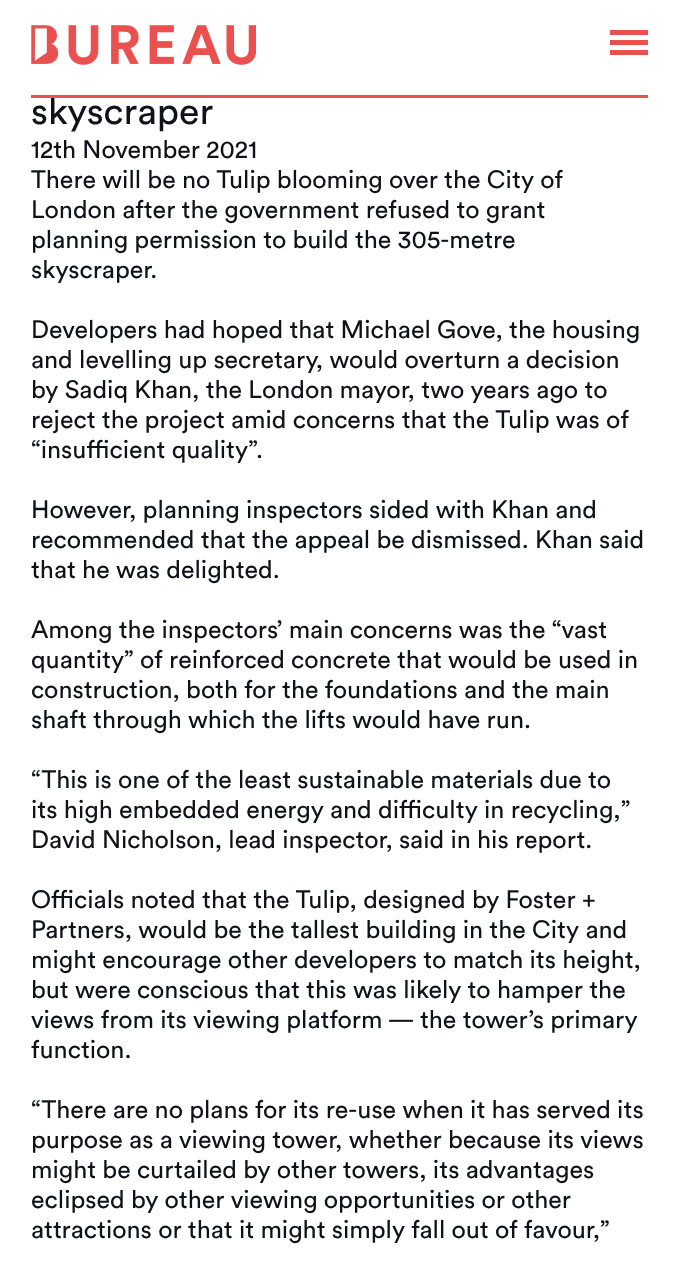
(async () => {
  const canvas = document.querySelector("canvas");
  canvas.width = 678;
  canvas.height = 1261;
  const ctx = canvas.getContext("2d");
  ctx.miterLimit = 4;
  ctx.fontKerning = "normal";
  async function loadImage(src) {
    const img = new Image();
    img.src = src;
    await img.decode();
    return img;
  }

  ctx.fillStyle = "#ffffff";
  ctx.fillRect(0, 0, 678, 1261);
  ctx.drawImage(await loadImage("img/1.png"), 31, 25, 225, 40);
  for (const [x, y, w, h, color] of [
    [610, 30, 38, 5, "#eb5050"],
    [610, 40, 38, 5, "#eb5050"],
    [610, 50, 38, 5, "#eb5050"],
  ]) {
    ctx.fillStyle = color;
    ctx.fillRect(x, y, w, h);
  }
  ctx.font = "37.5px Circular";
  ctx.fillStyle = "#0f1218";
  ctx.fillText("skyscraper", 31, 124);
  ctx.fillStyle = "#eb5050";
  ctx.fillRect(31, 95, 617, 3);
  ctx.font = "25px Circular";
  ctx.fillStyle = "#0f1218";
  for (const [text, x, y] of [
    ["12th November 2021", 31, 158],
    ["There will be no Tulip blooming over the City of", 31, 188],
    ["London after the government refused to grant", 31, 218],
    ["planning permission to build the 305-metre", 31, 248],
    ["skyscraper.", 31, 278],
    ["Developers had hoped that Michael Gove, the housing", 31, 338],
    ["and levelling up secretary, would overturn a decision", 31, 368],
    ["by Sadiq Khan, the London mayor, two years ago to", 31, 398],
    ["reject the project amid concerns that the Tulip was of", 31, 428],
    ["“insufficient quality”.", 31, 458],
    ["However, planning inspectors sided with Khan and", 31, 518],
    ["recommended that the appeal be dismissed. Khan said", 31, 548],
    ["that he was delighted.", 31, 578],
    ["Among the inspectors’ main concerns was the “vast", 31, 638],
    ["quantity” of reinforced concrete that would be used in", 31, 668],
    ["construction, both for the foundations and the main", 31, 698],
    ["shaft through which the lifts would have run.", 31, 728],
    ["“This is one of the least sustainable materials due to", 31, 788],
    ["its high embedded energy and difficulty in recycling,”", 31, 818],
    ["David Nicholson, lead inspector, said in his report.", 31, 848],
    ["Officials noted that the Tulip, designed by Foster +", 31, 908],
    ["Partners, would be the tallest building in the City and", 31, 938],
    ["might encourage other developers to match its height,", 31, 968],
    ["but were conscious that this was likely to hamper the", 31, 998],
    ["views from its viewing platform — the tower’s primary", 31, 1028],
    ["function.", 31, 1058],
    ["“There are no plans for its re-use when it has served its", 31, 1118],
    ["purpose as a viewing tower, whether because its views", 31, 1148],
    ["might be curtailed by other towers, its advantages", 31, 1178],
    ["eclipsed by other viewing opportunities or other", 31, 1208],
    ["attractions or that it might simply fall out of favour,”", 31, 1238],
  ]) {
    ctx.fillText(text, x, y);
  }
})();
